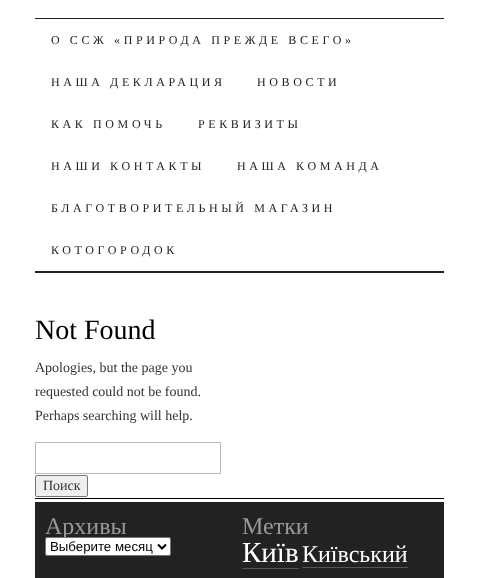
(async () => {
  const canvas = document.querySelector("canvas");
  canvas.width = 479;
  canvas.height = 578;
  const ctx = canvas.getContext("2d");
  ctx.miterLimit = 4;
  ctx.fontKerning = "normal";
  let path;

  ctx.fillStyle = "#ffffff";
  ctx.fillRect(0, 0, 479, 578);
  ctx.fillStyle = "#222222";
  ctx.fillRect(35, 18, 409, 1);
  ctx.fillRect(35, 271, 409, 2);
  ctx.strokeStyle = "#bbbbbb";
  ctx.strokeRect(35.5, 442.5, 185, 31);
  ctx.fillStyle = "#efefef";
  ctx.beginPath();
  ctx.roundRect(35.5, 475.5, 52, 21, 1.5);
  ctx.fill();
  ctx.strokeStyle = "#767676";
  ctx.stroke();
  for (const [x, y, w, h, color] of [
    [35, 498, 409, 1, "#000000"],
    [35, 502, 409, 76, "#222222"],
    [242, 568, 57, 1, "#555555"],
    [302, 567, 106, 1, "#555555"],
  ]) {
    ctx.fillStyle = color;
    ctx.fillRect(x, y, w, h);
  }
  ctx.letterSpacing = "3.6px";
  ctx.font = "12px Liberation Serif";
  ctx.fillStyle = "#222222";
  for (const [text, x, y] of [
    ["О ССЖ «ПРИРОДА ПРЕЖДЕ ВСЕГО»", 51, 44],
    ["НАША ДЕКЛАРАЦИЯ", 51, 86],
    ["НОВОСТИ", 257, 86],
    ["КАК ПОМОЧЬ", 51, 128],
    ["РЕКВИЗИТЫ", 198, 128],
    ["НАШИ КОНТАКТЫ", 51, 170],
    ["НАША КОМАНДА", 237, 170],
    ["БЛАГОТВОРИТЕЛЬНЫЙ МАГАЗИН", 51, 212],
    ["КОТОГОРОДОК", 51, 254],
  ]) {
    ctx.fillText(text, x, y);
  }
  ctx.letterSpacing = "0px";
  ctx.font = "28px Liberation Serif";
  ctx.fillStyle = "#000000";
  ctx.fillText("Not Found", 35, 339);
  ctx.font = "14px Liberation Serif";
  ctx.fillStyle = "#333333";
  for (const [text, x, y] of [
    ["Apologies, but the page you", 35, 372],
    ["requested could not be found.", 35, 396],
    ["Perhaps searching will help.", 35, 420],
    ["Поиск", 43, 490],
  ]) {
    ctx.fillText(text, x, y);
  }
  ctx.font = "24px Liberation Serif";
  ctx.fillStyle = "#999999";
  ctx.fillText("Архивы", 45, 534);
  ctx.fillStyle = "#ffffff";
  ctx.beginPath();
  ctx.roundRect(45.5, 537.5, 125, 18, 1.5);
  ctx.fill();
  ctx.stroke();
  path = new Path2D("M158 544.5L162 548.5L166 544.5");
  ctx.strokeStyle = "#000000";
  ctx.lineWidth = 2;
  ctx.stroke(path);
  ctx.font = "13.25px Liberation Sans";
  ctx.fillStyle = "#000000";
  ctx.fillText("Выберите месяц", 50, 551);
  ctx.font = "24px Liberation Serif";
  ctx.fillStyle = "#999999";
  ctx.fillText("Метки", 242, 534);
  ctx.font = "29px Liberation Serif";
  ctx.fillStyle = "#ffffff";
  ctx.fillText("Київ", 242, 562);
  ctx.font = "24px Liberation Serif";
  ctx.fillText("Київський", 302, 562);
})();
